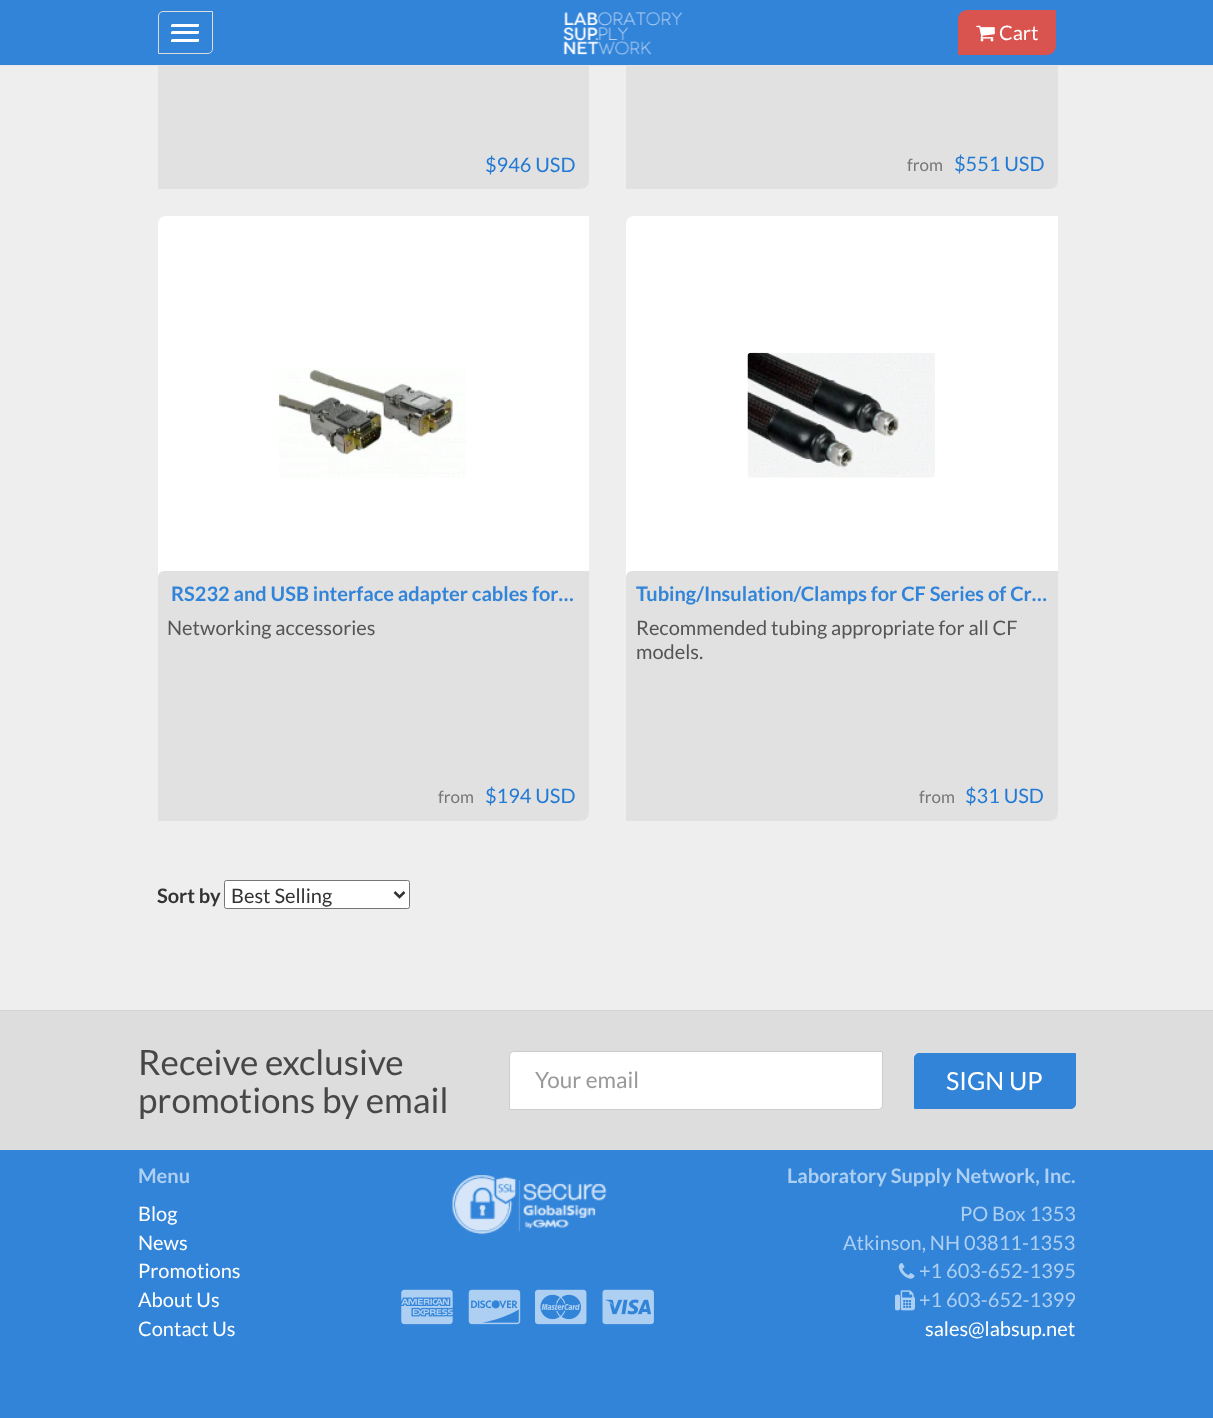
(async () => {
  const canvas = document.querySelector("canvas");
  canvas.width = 1213;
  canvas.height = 1418;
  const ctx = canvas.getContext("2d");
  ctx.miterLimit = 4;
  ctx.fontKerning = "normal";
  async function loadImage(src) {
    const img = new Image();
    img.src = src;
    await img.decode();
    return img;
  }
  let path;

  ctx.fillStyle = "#eeeeee";
  ctx.fillRect(0, 0, 1213, 1418);
  ctx.fillStyle = "#ffffff";
  path = new Path2D("M166-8H589V181C589 185.5 585.5 189 581 189H158V0C158-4.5 161.5-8 166-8Z");
  ctx.fill(path);
  ctx.fillStyle = "rgba(220, 220, 220, 0.85)";
  path = new Path2D("M164-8H589V181C589 185.5 585.5 189 581 189H158V-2C158-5.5 160.5-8 164-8Z");
  ctx.fill(path);
  ctx.fillStyle = "#ffffff";
  path = new Path2D("M634-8H1058V181C1058 185.5 1054.5 189 1050 189H626V0C626-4.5 629.5-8 634-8Z");
  ctx.fill(path);
  ctx.fillStyle = "rgba(220, 220, 220, 0.85)";
  path = new Path2D("M632-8H1058V181C1058 185.5 1054.5 189 1050 189H626V-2C626-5.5 628.5-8 632-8Z");
  ctx.fill(path);
  ctx.fillStyle = "#3284d9";
  ctx.fillRect(0, 0, 1213, 65);
  ctx.fillStyle = "#e7e7e7";
  ctx.fillRect(0, 65, 1213, 1);
  ctx.beginPath();
  ctx.roundRect(158.5, 11.5, 54, 42, [4.5, 0, 4.5, 0]);
  ctx.strokeStyle = "#dddddd";
  ctx.stroke();
  ctx.fillStyle = "#ffffff";
  ctx.beginPath();
  ctx.roundRect(171, 24, 28, 3, [1.5, 0, 1.5, 0]);
  ctx.fill();
  ctx.beginPath();
  ctx.roundRect(171, 31, 28, 3, [1.5, 0, 1.5, 0]);
  ctx.fill();
  ctx.beginPath();
  ctx.roundRect(171, 39, 28, 3, [1.5, 0, 1.5, 0]);
  ctx.fill();
  ctx.drawImage(await loadImage("img/1.png"), 563, 12, 120, 43);
  ctx.fillStyle = "#d9534f";
  ctx.beginPath();
  ctx.roundRect(958, 10, 98, 45, [9, 0, 9, 0]);
  ctx.fill();
  ctx.drawImage(await loadImage("img/2.png"), 976, 25, 19, 17);
  ctx.fillStyle = "#ffffff";
  ctx.beginPath();
  ctx.roundRect(158, 216, 431, 605, [8, 0, 8, 0]);
  ctx.fill();
  ctx.drawImage(await loadImage("img/3.png"), 278, 368, 188, 110);
  ctx.fillStyle = "rgba(220, 220, 220, 0.85)";
  ctx.beginPath();
  ctx.roundRect(158, 571, 431, 250, [6, 0, 8, 0]);
  ctx.fill();
  ctx.fillStyle = "#ffffff";
  ctx.beginPath();
  ctx.roundRect(626, 216, 432, 605, [8, 0, 8, 0]);
  ctx.fill();
  ctx.drawImage(await loadImage("img/4.png"), 747, 352, 188, 126);
  ctx.fillStyle = "rgba(220, 220, 220, 0.85)";
  ctx.beginPath();
  ctx.roundRect(626, 571, 432, 250, [6, 0, 8, 0]);
  ctx.fill();
  ctx.fillStyle = "#ffffff";
  ctx.beginPath();
  ctx.roundRect(224.5, 880.5, 185, 28, 2);
  ctx.fill();
  ctx.strokeStyle = "#767676";
  ctx.stroke();
  path = new Path2D("M394.5 892L399.5 897L404.5 892");
  ctx.strokeStyle = "#333333";
  ctx.lineWidth = 2.5;
  ctx.stroke(path);
  for (const [x, y, w, h, color] of [
    [0, 1150, 1213, 268, "#3284d9"],
    [0, 1011, 1213, 139, "#dddddd"],
    [0, 1010, 1213, 1, "#d3d3d3"],
  ]) {
    ctx.fillStyle = color;
    ctx.fillRect(x, y, w, h);
  }
  ctx.fillStyle = "#ffffff";
  ctx.beginPath();
  ctx.roundRect(509.5, 1051.5, 373, 58, [4.5, 0, 4.5, 0]);
  ctx.fill();
  ctx.strokeStyle = "#cccccc";
  ctx.lineWidth = 1;
  ctx.stroke();
  ctx.fillStyle = "#3284d9";
  ctx.beginPath();
  ctx.roundRect(914.5, 1053.5, 161, 55, [4.5, 0, 4.5, 0]);
  ctx.fill();
  ctx.strokeStyle = "#3284d9";
  ctx.stroke();
  ctx.drawImage(await loadImage("img/5.png"), 452, 1175, 155, 60);
  ctx.drawImage(await loadImage("img/6.png"), 401, 1289, 52, 36);
  ctx.drawImage(await loadImage("img/7.png"), 468, 1289, 53, 36);
  ctx.drawImage(await loadImage("img/8.png"), 535, 1289, 52, 36);
  ctx.drawImage(await loadImage("img/9.png"), 602, 1289, 52, 36);
  ctx.drawImage(await loadImage("img/10.png"), 898, 1263, 17, 16);
  ctx.drawImage(await loadImage("img/11.png"), 895, 1290, 20, 21);
  ctx.font = "20px Lato";
  ctx.fillStyle = "#ffffff";
  ctx.fillText("Cart", 999, 40);
  ctx.fillStyle = "#237ad4";
  ctx.fillText("$946 USD", 485, 172);
  ctx.font = "17px Lato";
  ctx.fillStyle = "#777777";
  ctx.fillText("from", 907, 171);
  ctx.font = "20px Lato";
  ctx.fillStyle = "#237ad4";
  ctx.fillText("$551 USD", 954, 171);
  ctx.font = "bold 20px Lato";
  ctx.fillStyle = "#3284d9";
  ctx.fillText("RS232 and USB interface adapter cables for…", 171, 601);
  ctx.font = "20px Lato";
  ctx.fillStyle = "#555555";
  ctx.fillText("Networking accessories", 167, 635);
  ctx.font = "17px Lato";
  ctx.fillStyle = "#777777";
  ctx.fillText("from", 438, 803);
  ctx.font = "20px Lato";
  ctx.fillStyle = "#237ad4";
  ctx.fillText("$194 USD", 485, 803);
  ctx.font = "bold 20px Lato";
  ctx.fillStyle = "#3284d9";
  ctx.fillText("Tubing/Insulation/Clamps for CF Series of Cr…", 636, 601);
  ctx.font = "20px Lato";
  ctx.fillStyle = "#555555";
  ctx.fillText("Recommended tubing appropriate for all CF", 636, 635);
  ctx.fillText("models.", 636, 659);
  ctx.font = "17px Lato";
  ctx.fillStyle = "#777777";
  ctx.fillText("from", 919, 803);
  ctx.font = "20px Lato";
  ctx.fillStyle = "#237ad4";
  ctx.fillText("$31 USD", 965, 803);
  ctx.font = "bold 20px Lato";
  ctx.fillStyle = "#333333";
  ctx.fillText("Sort by", 157, 903);
  ctx.font = "20px Lato";
  ctx.fillText("Best Selling", 231, 903);
  ctx.font = "35px Lato";
  ctx.fillStyle = "#474747";
  ctx.fillText("Receive exclusive", 138, 1075);
  ctx.fillText("promotions by email", 138, 1113);
  ctx.font = "22.5px Lato";
  ctx.fillStyle = "#999999";
  ctx.fillText("Your email", 535, 1088);
  ctx.font = "25px Lato";
  ctx.fillStyle = "#ffffff";
  ctx.fillText("SIGN UP", 946, 1090);
  ctx.font = "bold 20px Lato";
  ctx.fillStyle = "#adcff2";
  ctx.fillText("Menu", 138, 1183);
  ctx.font = "20px Lato";
  ctx.fillStyle = "#ffffff";
  for (const [text, x, y] of [
    ["Blog", 138, 1221],
    ["News", 138, 1250],
    ["Promotions", 138, 1278],
    ["About Us", 138, 1307],
    ["Contact Us", 138, 1336],
  ]) {
    ctx.fillText(text, x, y);
  }
  ctx.font = "bold 20px Lato";
  ctx.fillStyle = "#adcff2";
  ctx.fillText("Laboratory Supply Network, Inc.", 787, 1183);
  ctx.font = "20px Lato";
  for (const [text, x, y] of [
    ["PO Box 1353", 960, 1221],
    ["Atkinson, NH 03811-1353", 843, 1250],
    ["+1 603-652-1395", 919, 1278],
    ["+1 603-652-1399", 919, 1307],
  ]) {
    ctx.fillText(text, x, y);
  }
  ctx.fillStyle = "#ffffff";
  ctx.fillText("sales@labsup.net", 925, 1336);
})();
